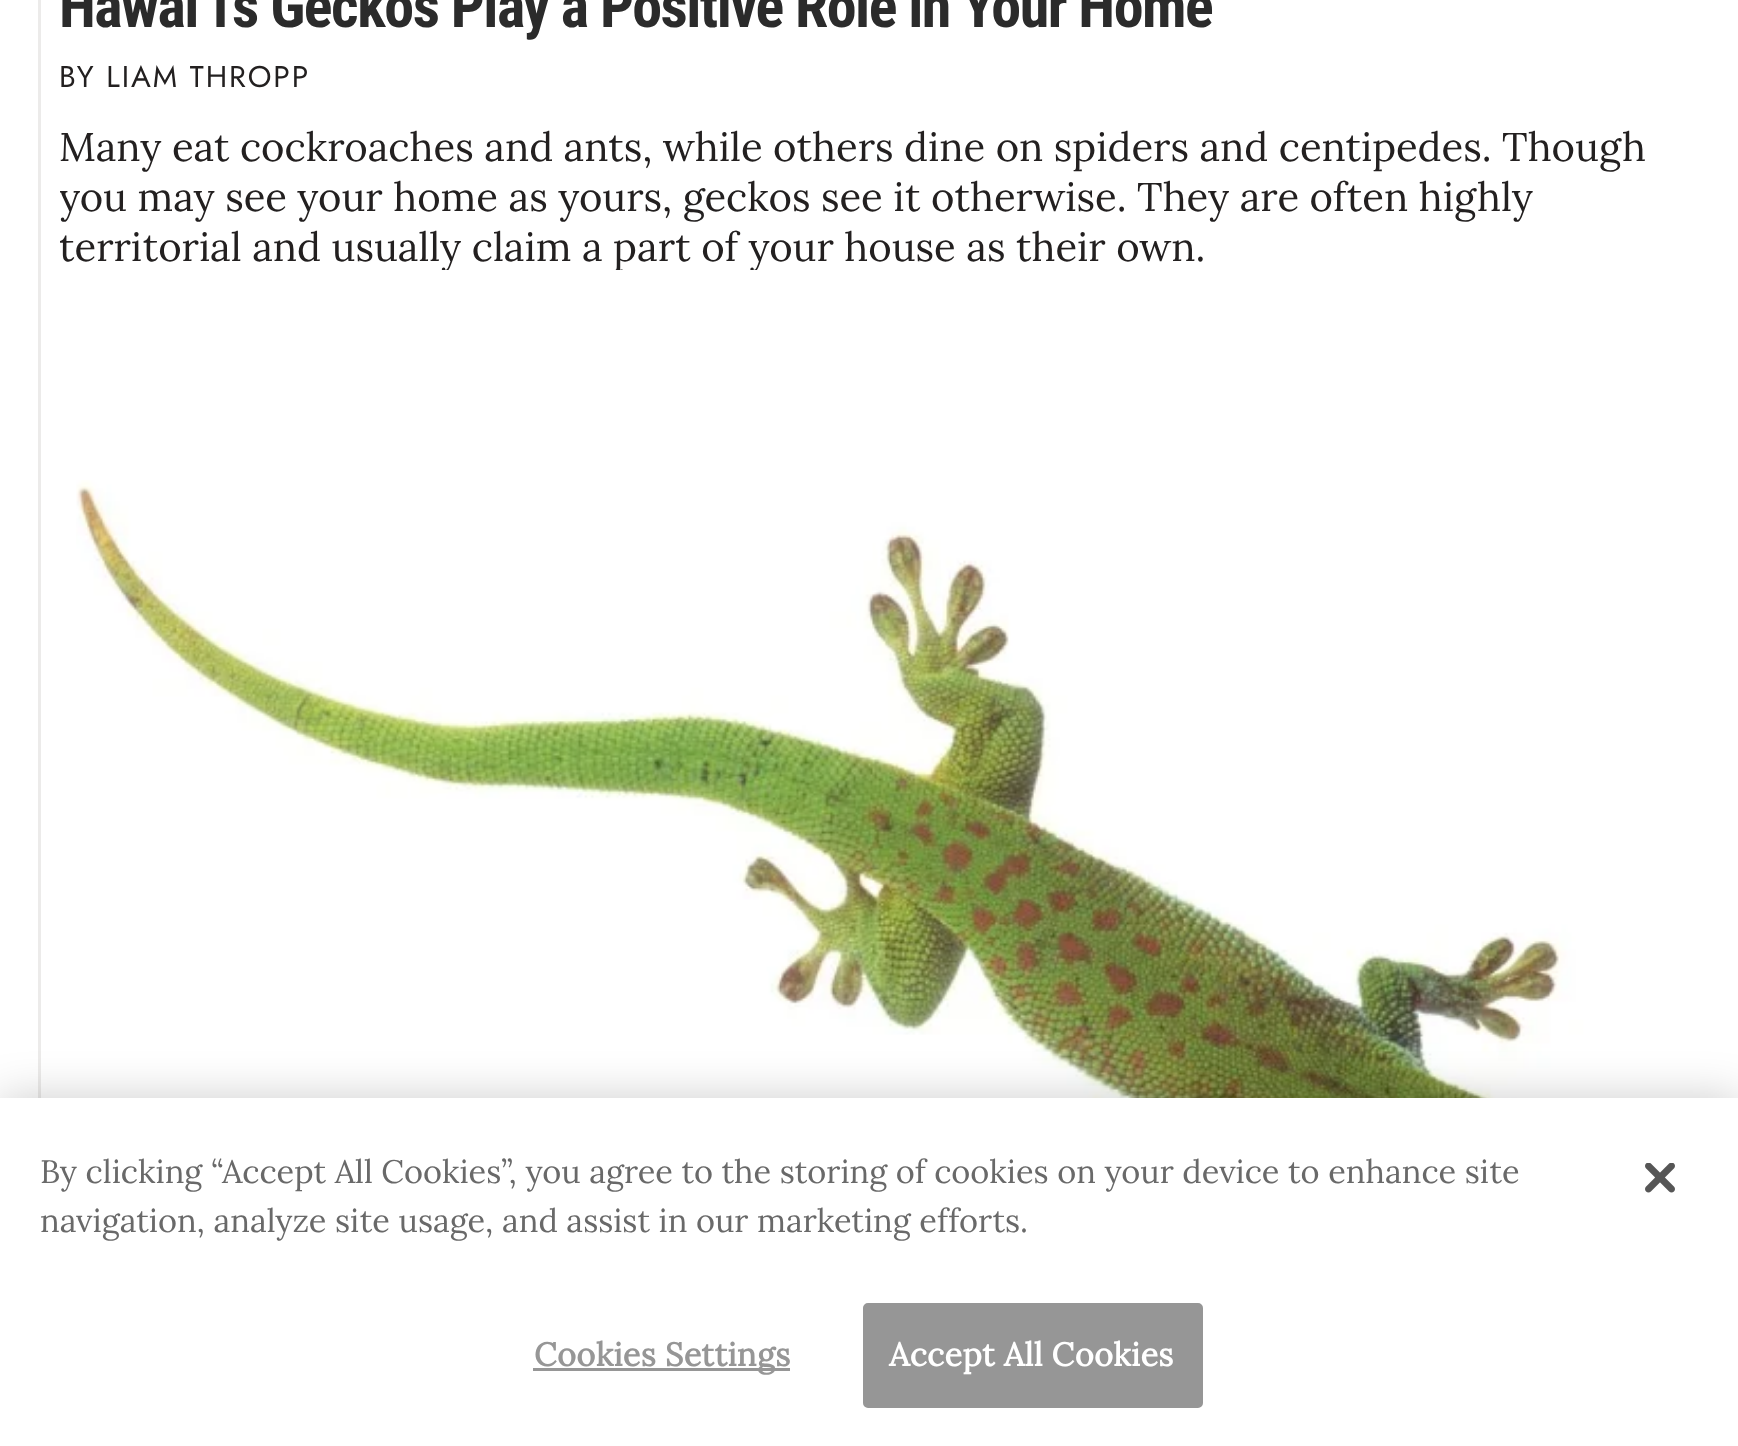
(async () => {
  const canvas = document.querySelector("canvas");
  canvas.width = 1738;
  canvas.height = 1446;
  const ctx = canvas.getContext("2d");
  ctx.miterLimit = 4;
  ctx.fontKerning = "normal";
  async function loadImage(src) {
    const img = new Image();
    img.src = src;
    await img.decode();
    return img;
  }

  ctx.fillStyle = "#ffffff";
  ctx.fillRect(0, 0, 1738, 1446);
  ctx.fillStyle = "#ecebea";
  ctx.fillRect(38, 0, 3, 1098);
  ctx.drawImage(await loadImage("img/1.png"), 76, 480, 1516, 618);
  ctx.fillStyle = "rgba(0, 0, 0, 0.2)";
  ctx.filter = "blur(22.5px)";
  ctx.beginPath();
  ctx.rect(0, 1098, 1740, 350);
  ctx.fill();
  ctx.filter = "none";
  ctx.fillStyle = "#ffffff";
  ctx.fillRect(0, 1098, 1738, 348);
  ctx.fillStyle = "#969696";
  ctx.fillRect(533, 1368, 257, 3);
  ctx.beginPath();
  ctx.roundRect(864.5, 1304.5, 337, 102, 3.5);
  ctx.fill();
  ctx.strokeStyle = "#969696";
  ctx.lineWidth = 3;
  ctx.stroke();
  ctx.drawImage(await loadImage("img/2.png"), 1645, 1163, 30, 30);
  ctx.letterSpacing = "-1.5px";
  ctx.font = "bold 60px Roboto Condensed";
  ctx.fillStyle = "#2b2b2b";
  ctx.fillText("Hawai", 59, 27);
  ctx.fillText("i's Geckos Play a Positive Role in Your Home", 213, 27);
  ctx.letterSpacing = "1.9px";
  ctx.font = "30px Jost";
  ctx.fillStyle = "#232020";
  ctx.fillText("BY LIAM THROPP", 59, 87);
  ctx.letterSpacing = "0px";
  ctx.font = "40px Lora";
  ctx.fillText("Many eat cockroaches and ants, while others dine on spiders and centipedes. Though", 59, 161);
  ctx.save();
  ctx.beginPath();
  ctx.rect(60, 0, 1625, 270);
  ctx.clip();
  ctx.fillText("you may see your home as yours, geckos see it otherwise. They are often highly", 59, 211);
  ctx.fillText("territorial and usually claim a part of your house as their own.", 59, 261);
  ctx.restore();
  ctx.font = "32.5px Lora";
  ctx.fillStyle = "#696969";
  ctx.fillText("By clicking “Accept All Cookies”, you agree to the storing of cookies on your device to enhance site", 40, 1183);
  ctx.fillText("navigation, analyze site usage, and assist in our marketing efforts.", 40, 1232);
  ctx.letterSpacing = "0.3px";
  ctx.font = "bold 32.5px Lora";
  ctx.fillStyle = "#969696";
  ctx.fillText("Cookies Settings", 534, 1366);
  ctx.fillStyle = "#ffffff";
  ctx.fillText("Accept All Cookies", 889, 1366);
})();
